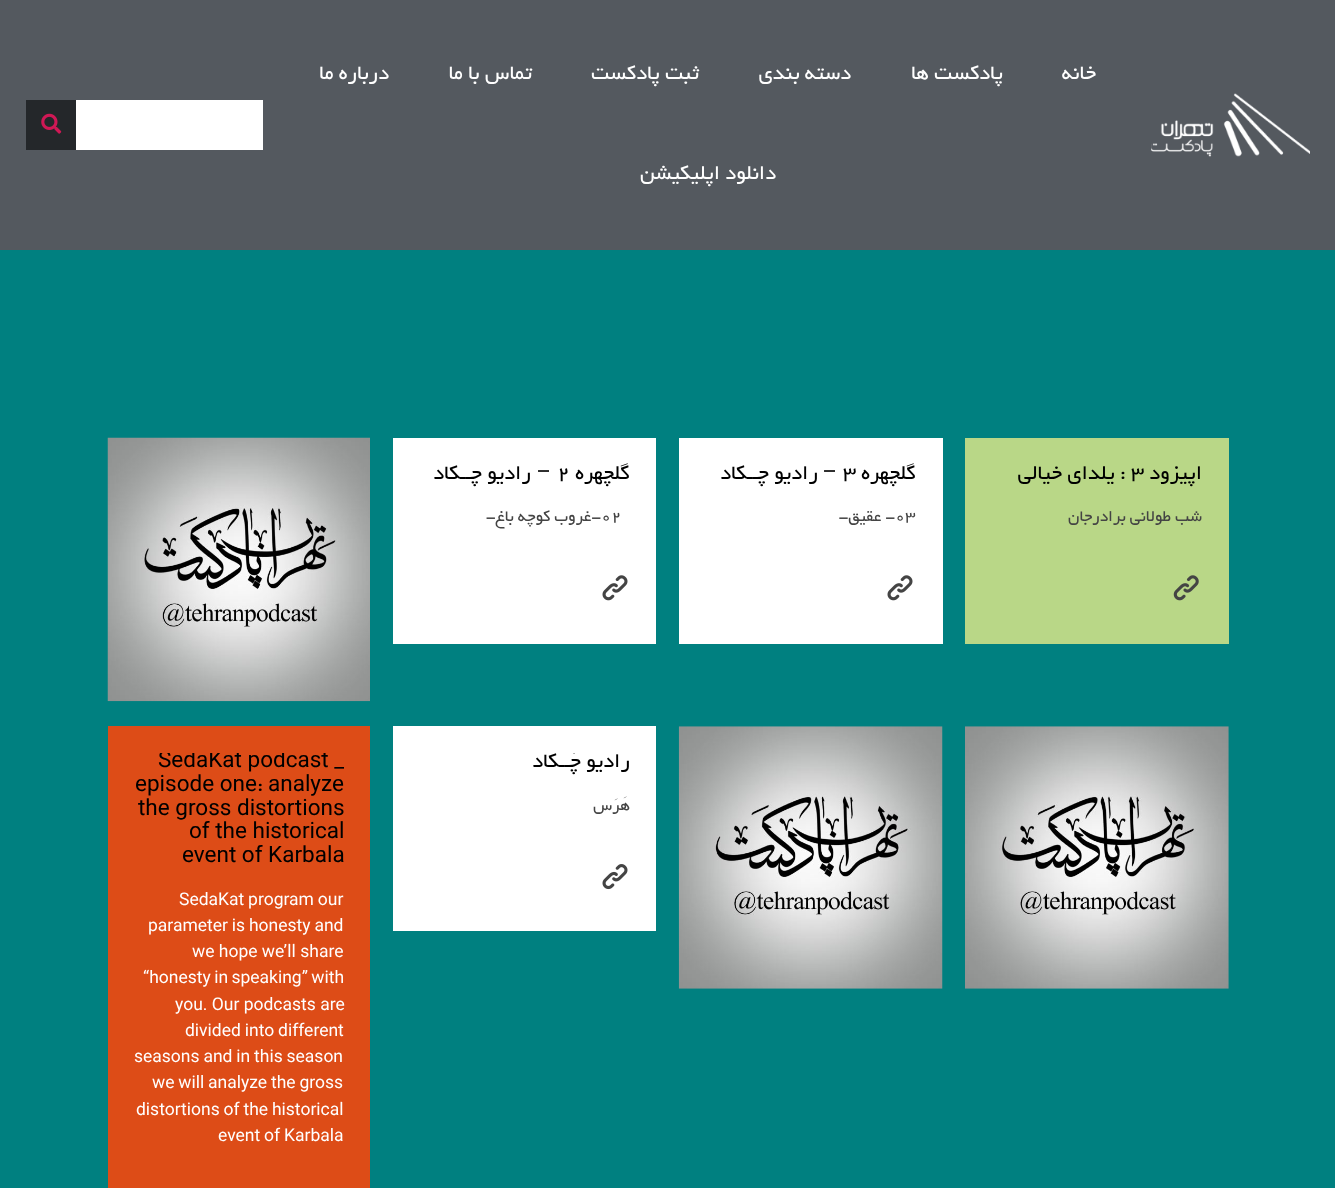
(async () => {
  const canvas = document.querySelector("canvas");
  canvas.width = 1335;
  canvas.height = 1188;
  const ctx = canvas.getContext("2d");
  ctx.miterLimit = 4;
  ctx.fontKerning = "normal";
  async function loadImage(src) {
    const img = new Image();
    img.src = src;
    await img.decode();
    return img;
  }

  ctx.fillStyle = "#54595f";
  ctx.fillRect(0, 0, 1335, 1188);
  ctx.fillStyle = "#ffffff";
  ctx.fillRect(76, 100, 187, 50);
  ctx.fillStyle = "#24272a";
  ctx.fillRect(26, 100, 50, 50);
  ctx.drawImage(await loadImage("img/1.png"), 41, 113, 21, 21);
  ctx.drawImage(await loadImage("img/2.png"), 1151, 93, 159, 64);
  ctx.fillStyle = "#008080";
  ctx.fillRect(0, 250, 1335, 938);
  ctx.drawImage(await loadImage("img/3.png"), 107, 437, 263, 265);
  ctx.fillStyle = "#ffffff";
  ctx.fillRect(393, 438, 263, 206);
  ctx.drawImage(await loadImage("img/4.png"), 602, 575, 26, 26);
  ctx.fillRect(679, 438, 264, 206);
  ctx.drawImage(await loadImage("img/4.png"), 887, 575, 26, 26);
  ctx.fillStyle = "#b9d787";
  ctx.fillRect(965, 438, 264, 206);
  ctx.drawImage(await loadImage("img/5.png"), 1173, 575, 26, 26);
  ctx.fillStyle = "#dd4c17";
  ctx.fillRect(108, 726, 262, 462);
  ctx.fillStyle = "#ffffff";
  ctx.fillRect(393, 726, 263, 205);
  ctx.drawImage(await loadImage("img/6.png"), 602, 864, 26, 26);
  ctx.drawImage(await loadImage("img/7.png"), 678, 726, 265, 263);
  ctx.drawImage(await loadImage("img/8.png"), 965, 726, 264, 263);
  ctx.direction = "rtl";
  ctx.font = "22.5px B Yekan";
  for (const [text, x, y] of [
    ["درباره ما", 389, 79],
    ["تماس با ما", 532, 79],
    ["ثبت پادکست", 699, 79],
    ["دسته بندی", 851, 79],
    ["پادکست ها", 1003, 79],
    ["خانه", 1096, 79],
    ["دانلود اپلیکیشن", 776, 179],
  ]) {
    ctx.fillText(text, x, y);
  }
  ctx.fillStyle = "#000000";
  ctx.fillText("رادیو چــکاد", 531, 479);
  ctx.font = "22.5px Roboto";
  ctx.fillText("–", 551, 479);
  ctx.direction = "ltr";
  ctx.font = "22.5px B Yekan";
  ctx.fillText("۲", 557, 479);
  ctx.direction = "rtl";
  ctx.fillText("گلچهره", 630, 479);
  ctx.font = "17.5px B Yekan";
  ctx.fillStyle = "#444444";
  ctx.fillText("-غروب کوچه باغ-", 601, 521);
  ctx.direction = "ltr";
  ctx.fillText("۰۲", 601, 521);
  ctx.direction = "rtl";
  ctx.font = "22.5px B Yekan";
  ctx.fillStyle = "#000000";
  ctx.fillText("رادیو چــکاد", 818, 479);
  ctx.font = "22.5px Roboto";
  ctx.fillText("–", 837, 479);
  ctx.direction = "ltr";
  ctx.font = "22.5px B Yekan";
  ctx.fillText("۳", 843, 479);
  ctx.direction = "rtl";
  ctx.fillText("گلچهره", 916, 479);
  ctx.font = "17.5px B Yekan";
  ctx.fillStyle = "#444444";
  ctx.fillText("- عقیق-", 895, 521);
  ctx.direction = "ltr";
  ctx.fillText("۰۳", 895, 521);
  ctx.direction = "rtl";
  ctx.font = "22.5px B Yekan";
  ctx.fillStyle = "#000000";
  ctx.fillText(": یلدای خیالی", 1126, 479);
  ctx.direction = "ltr";
  ctx.fillText("۳", 1131, 479);
  ctx.direction = "rtl";
  ctx.fillText("اپیزود", 1202, 479);
  ctx.font = "17.5px B Yekan";
  ctx.fillStyle = "#444444";
  ctx.fillText("شب طولانی برادرجان", 1202, 521);
  ctx.save();
  ctx.beginPath();
  ctx.rect(134, 753, 210, 400);
  ctx.clip();
  ctx.direction = "ltr";
  ctx.font = "22.5px Roboto";
  ctx.fillStyle = "#000000";
  ctx.fillText("SedaKat podcast _", 158, 767);
  ctx.restore();
  ctx.direction = "ltr";
  ctx.font = "22.5px Roboto";
  ctx.fillStyle = "#000000";
  ctx.fillText("episode one", 135, 791);
  ctx.font = "22.5px B Yekan";
  ctx.fillText(":", 257, 791);
  ctx.font = "22.5px Roboto";
  for (const [text, x, y] of [
    ["analyze", 268, 791],
    ["the gross distortions", 138, 815],
    ["of the historical", 189, 838],
    ["event of Karbala", 182, 862],
  ]) {
    ctx.fillText(text, x, y);
  }
  ctx.wordSpacing = "-0.5px";
  ctx.font = "17.5px Roboto";
  ctx.fillStyle = "#ffffff";
  ctx.fillText("SedaKat program our", 179, 905);
  ctx.fillText("parameter is honesty and", 148, 931);
  ctx.wordSpacing = "0px";
  ctx.fillText("we hope we’ll share", 192, 957);
  ctx.wordSpacing = "-1px";
  ctx.fillText("“honesty in speaking” with", 143, 983);
  ctx.wordSpacing = "0px";
  ctx.fillText("you. Our podcasts are", 175, 1010);
  ctx.wordSpacing = "-0.5px";
  for (const [text, x, y] of [
    ["divided into different", 185, 1036],
    ["seasons and in this season", 134, 1062],
    ["we will analyze the gross", 152, 1088],
    ["distortions of the historical", 136, 1115],
    ["event of Karbala", 218, 1141],
  ]) {
    ctx.fillText(text, x, y);
  }
  ctx.save();
  ctx.beginPath();
  ctx.rect(420, 753, 210, 68);
  ctx.clip();
  ctx.wordSpacing = "0px";
  ctx.direction = "rtl";
  ctx.font = "22.5px B Yekan";
  ctx.fillStyle = "#000000";
  ctx.fillText("رادیو چَــکاد", 630, 767);
  ctx.restore();
  ctx.wordSpacing = "0px";
  ctx.direction = "rtl";
  ctx.font = "17.5px B Yekan";
  ctx.fillStyle = "#444444";
  ctx.fillText("هَرَس", 630, 810);
})();
